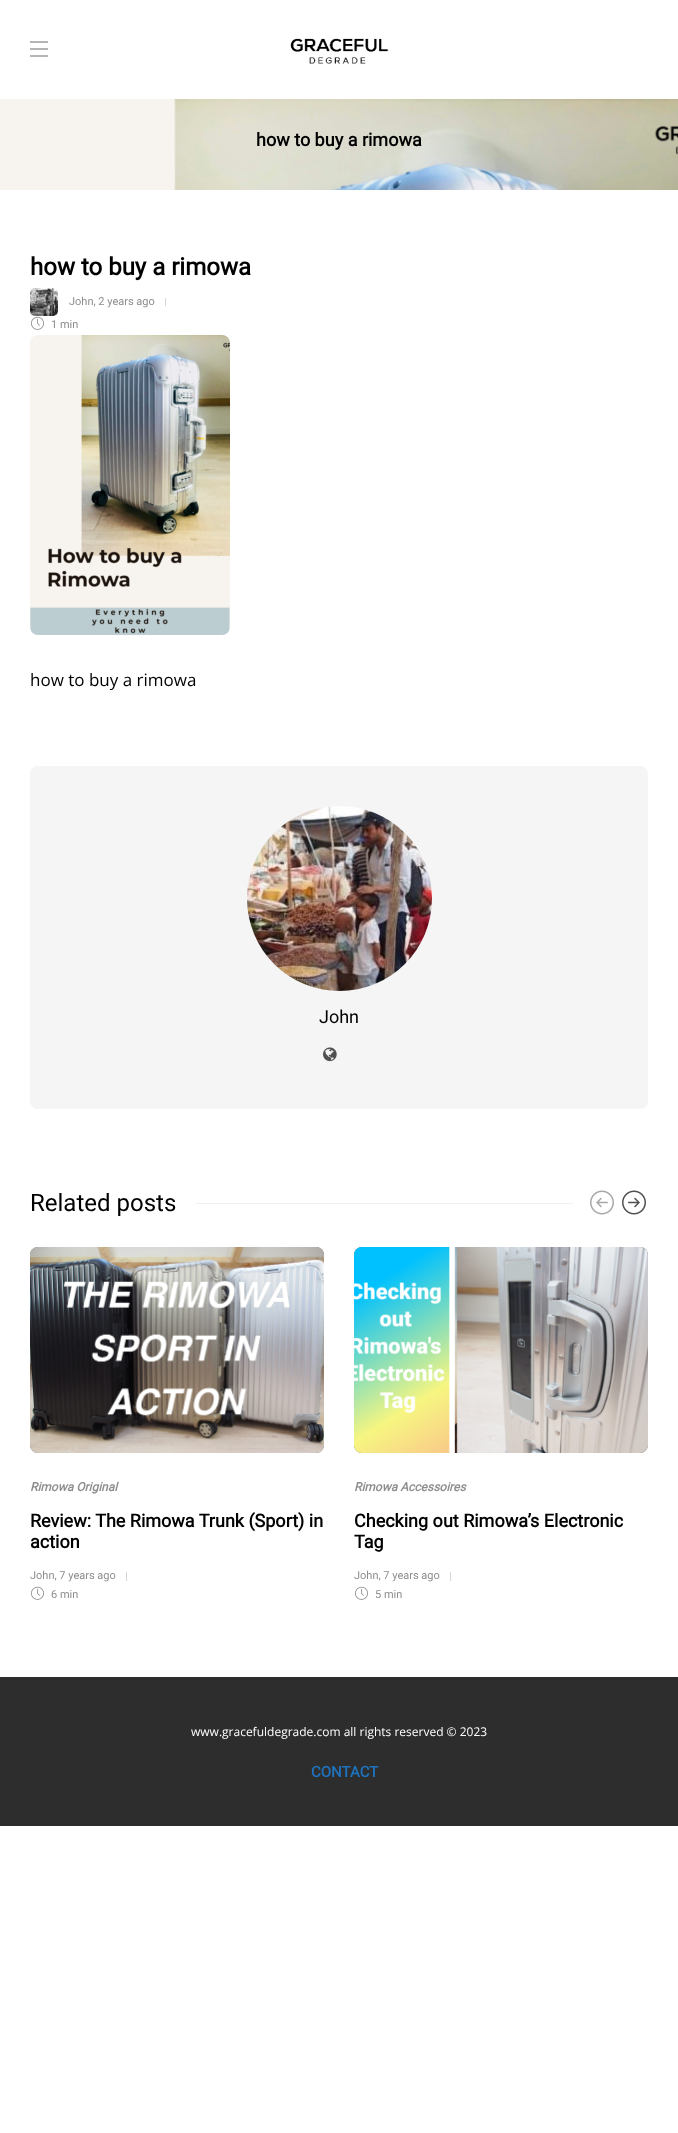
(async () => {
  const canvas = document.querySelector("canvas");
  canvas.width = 678;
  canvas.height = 2133;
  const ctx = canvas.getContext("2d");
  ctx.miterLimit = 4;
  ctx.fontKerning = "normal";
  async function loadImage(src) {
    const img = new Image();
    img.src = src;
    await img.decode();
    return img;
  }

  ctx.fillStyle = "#ffffff";
  ctx.fillRect(0, 0, 678, 2133);
  for (const [x, y, w, h, color] of [
    [30, 41, 18, 2, "#b5b5b5"],
    [30, 48, 18, 2, "#b5b5b5"],
    [30, 55, 18, 2, "#b5b5b5"],
  ]) {
    ctx.fillStyle = color;
    ctx.fillRect(x, y, w, h);
  }
  ctx.drawImage(await loadImage("img/1.png"), 290, 38, 99, 26);
  ctx.drawImage(await loadImage("img/2.png"), 0, 99, 678, 91);
  ctx.drawImage(await loadImage("img/3.png"), 30, 288, 28, 28);
  ctx.fillStyle = "#d6d6d6";
  ctx.fillRect(165, 298, 1, 8);
  ctx.drawImage(await loadImage("img/4.png"), 31, 316, 13, 14);
  ctx.drawImage(await loadImage("img/5.png"), 30, 335, 200, 300);
  ctx.fillStyle = "#f5f5f5";
  ctx.beginPath();
  ctx.roundRect(30, 766, 618, 343, 8);
  ctx.fill();
  ctx.drawImage(await loadImage("img/6.png"), 247, 806, 185, 185);
  ctx.drawImage(await loadImage("img/7.png"), 323, 1047, 14, 15);
  ctx.fillStyle = "#f0f0f0";
  ctx.fillRect(196, 1203, 377, 1);
  ctx.drawImage(await loadImage("img/8.png"), 590, 1190, 24, 25);
  ctx.drawImage(await loadImage("img/9.png"), 622, 1190, 24, 25);
  ctx.fillStyle = "#717171";
  ctx.beginPath();
  ctx.roundRect(30, 1247, 294, 206, 8);
  ctx.fill();
  ctx.drawImage(await loadImage("img/10.png"), 30, 1247, 294, 206);
  ctx.fillStyle = "#d6d6d6";
  ctx.fillRect(126, 1572, 1, 9);
  ctx.drawImage(await loadImage("img/4.png"), 31, 1586, 13, 14);
  ctx.fillStyle = "#717171";
  ctx.beginPath();
  ctx.roundRect(354, 1247, 294, 206, 8);
  ctx.fill();
  ctx.drawImage(await loadImage("img/11.png"), 354, 1247, 294, 206);
  ctx.fillStyle = "#d6d6d6";
  ctx.fillRect(450, 1572, 1, 9);
  ctx.drawImage(await loadImage("img/4.png"), 355, 1586, 13, 14);
  ctx.fillStyle = "#2d2d2d";
  ctx.fillRect(0, 1677, 678, 149);
  ctx.font = "bold 18px Roboto";
  ctx.fillStyle = "#000000";
  ctx.fillText("how to buy a rimowa", 256, 146);
  ctx.font = "bold 24px Roboto";
  ctx.fillText("how to buy a rimowa", 30, 275);
  ctx.font = "11px Roboto";
  ctx.fillStyle = "#8d8d8d";
  ctx.fillText("John, 2 years ago", 69, 305);
  ctx.fillText("1 min", 51, 328);
  ctx.font = "17px Open Sans";
  ctx.fillStyle = "#000000";
  ctx.fillText("how to buy a rimowa", 30, 686);
  ctx.font = "18px Roboto";
  ctx.fillText("John", 319, 1023);
  ctx.font = "24px Roboto";
  ctx.fillText("Related posts", 30, 1211);
  ctx.font = "italic bold 12px Roboto";
  ctx.fillStyle = "#8d8d8d";
  ctx.fillText("Rimowa Original", 30, 1491);
  ctx.font = "bold 18px Roboto";
  ctx.fillStyle = "#000000";
  ctx.fillText("Review: The Rimowa Trunk (Sport) in", 30, 1527);
  ctx.fillText("action", 30, 1548);
  ctx.font = "11px Roboto";
  ctx.fillStyle = "#8d8d8d";
  ctx.fillText("John, 7 years ago", 30, 1579);
  ctx.fillText("6 min", 51, 1598);
  ctx.font = "italic bold 12px Roboto";
  ctx.fillText("Rimowa Accessoires", 354, 1491);
  ctx.font = "bold 18px Roboto";
  ctx.fillStyle = "#000000";
  ctx.fillText("Checking out Rimowa’s Electronic", 354, 1527);
  ctx.fillText("Tag", 354, 1548);
  ctx.font = "11px Roboto";
  ctx.fillStyle = "#8d8d8d";
  ctx.fillText("John, 7 years ago", 354, 1579);
  ctx.fillText("5 min", 375, 1598);
  ctx.font = "12px Open Sans";
  ctx.fillStyle = "#ffffff";
  ctx.fillText("www.gracefuldegrade.com all rights reserved © 2023", 191, 1736);
  ctx.font = "bold 15px Roboto";
  ctx.fillStyle = "#1e73be";
  ctx.fillText("CONTACT", 311, 1777);
})();
